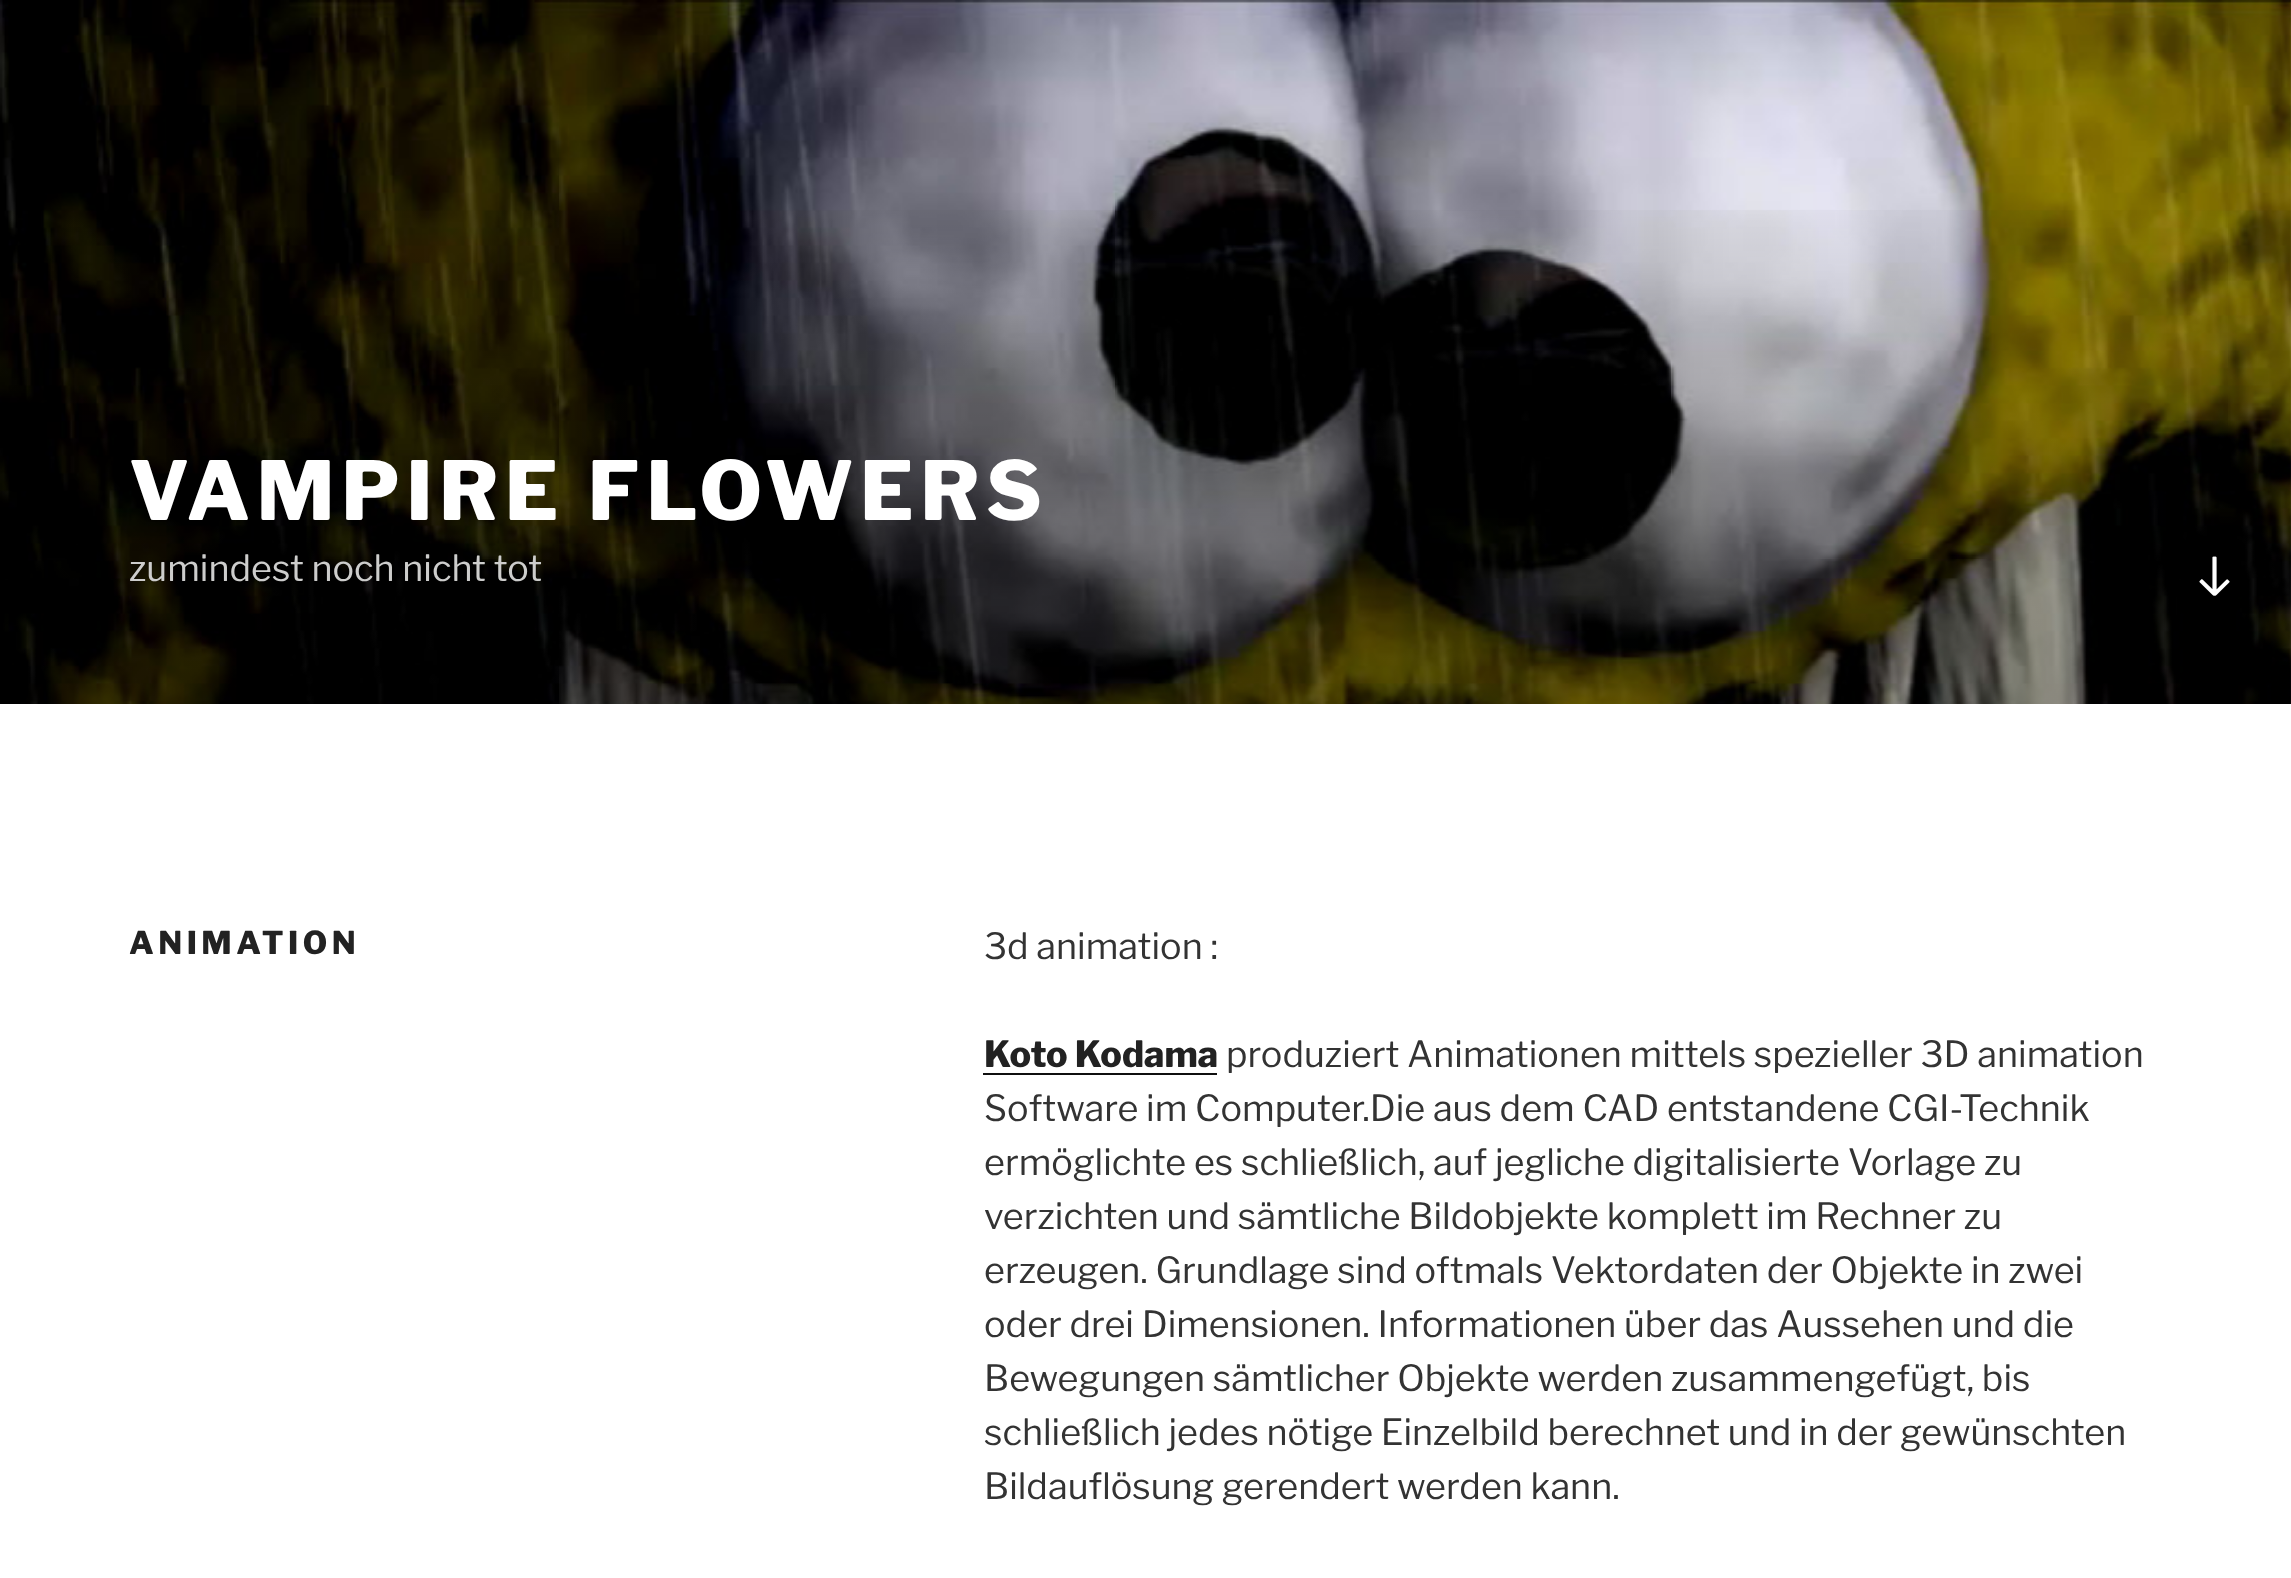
(async () => {
  const canvas = document.querySelector("canvas");
  canvas.width = 2291;
  canvas.height = 1578;
  const ctx = canvas.getContext("2d");
  ctx.miterLimit = 4;
  ctx.fontKerning = "normal";
  async function loadImage(src) {
    const img = new Image();
    img.src = src;
    await img.decode();
    return img;
  }
  let gradient;

  ctx.fillStyle = "#ffffff";
  ctx.fillRect(0, 0, 2291, 1578);
  ctx.drawImage(await loadImage("img/1.png"), 0, 0, 2291, 704);
  gradient = ctx.createLinearGradient(1146, 182, 1146, 704);
  gradient.addColorStop(0, "rgba(0, 0, 0, 0)");
  gradient.addColorStop(0.75, "rgba(0, 0, 0, 0.3)");
  gradient.addColorStop(1, "rgba(0, 0, 0, 0.3)");
  ctx.fillStyle = gradient;
  ctx.fillRect(0, 210, 2291, 494);
  ctx.drawImage(await loadImage("img/2.png"), 2199, 556, 31, 40);
  ctx.fillStyle = "#0f0f0f";
  ctx.fillRect(983, 1073, 234, 2);
  ctx.letterSpacing = "6.5px";
  ctx.font = "800 81px Libre Franklin";
  ctx.fillStyle = "#ffffff";
  ctx.fillText("VAMPIRE FLOWERS", 129, 520);
  ctx.letterSpacing = "0px";
  ctx.font = "36px Libre Franklin";
  ctx.fillStyle = "#cdcdcc";
  ctx.fillText("zumindest noch nicht tot", 129, 581);
  ctx.letterSpacing = "4.5px";
  ctx.font = "800 31.5px Libre Franklin";
  ctx.fillStyle = "#222222";
  ctx.fillText("ANIMATION", 129, 954);
  ctx.letterSpacing = "0px";
  ctx.font = "36px Libre Franklin";
  ctx.fillStyle = "#333333";
  ctx.fillText("3d animation :", 984, 959);
  ctx.font = "800 36px Libre Franklin";
  ctx.fillStyle = "#222222";
  ctx.fillText("Koto Kodama", 984, 1067);
  ctx.font = "36px Libre Franklin";
  ctx.fillStyle = "#333333";
  for (const [text, x, y] of [
    ["produziert Animationen mittels spezieller 3D animation", 1226, 1067],
    ["Software im Computer.Die aus dem CAD entstandene CGI-Technik", 984, 1121],
    ["ermöglichte es schließlich, auf jegliche digitalisierte Vorlage zu", 984, 1175],
    ["verzichten und sämtliche Bildobjekte komplett im Rechner zu", 984, 1229],
    ["erzeugen. Grundlage sind oftmals Vektordaten der Objekte in zwei", 984, 1283],
    ["oder drei Dimensionen. Informationen über das Aussehen und die", 984, 1337],
    ["Bewegungen sämtlicher Objekte werden zusammengefügt, bis", 984, 1391],
    ["schließlich jedes nötige Einzelbild berechnet und in der gewünschten", 984, 1445],
    ["Bildauflösung gerendert werden kann.", 984, 1499],
  ]) {
    ctx.fillText(text, x, y);
  }
})();
